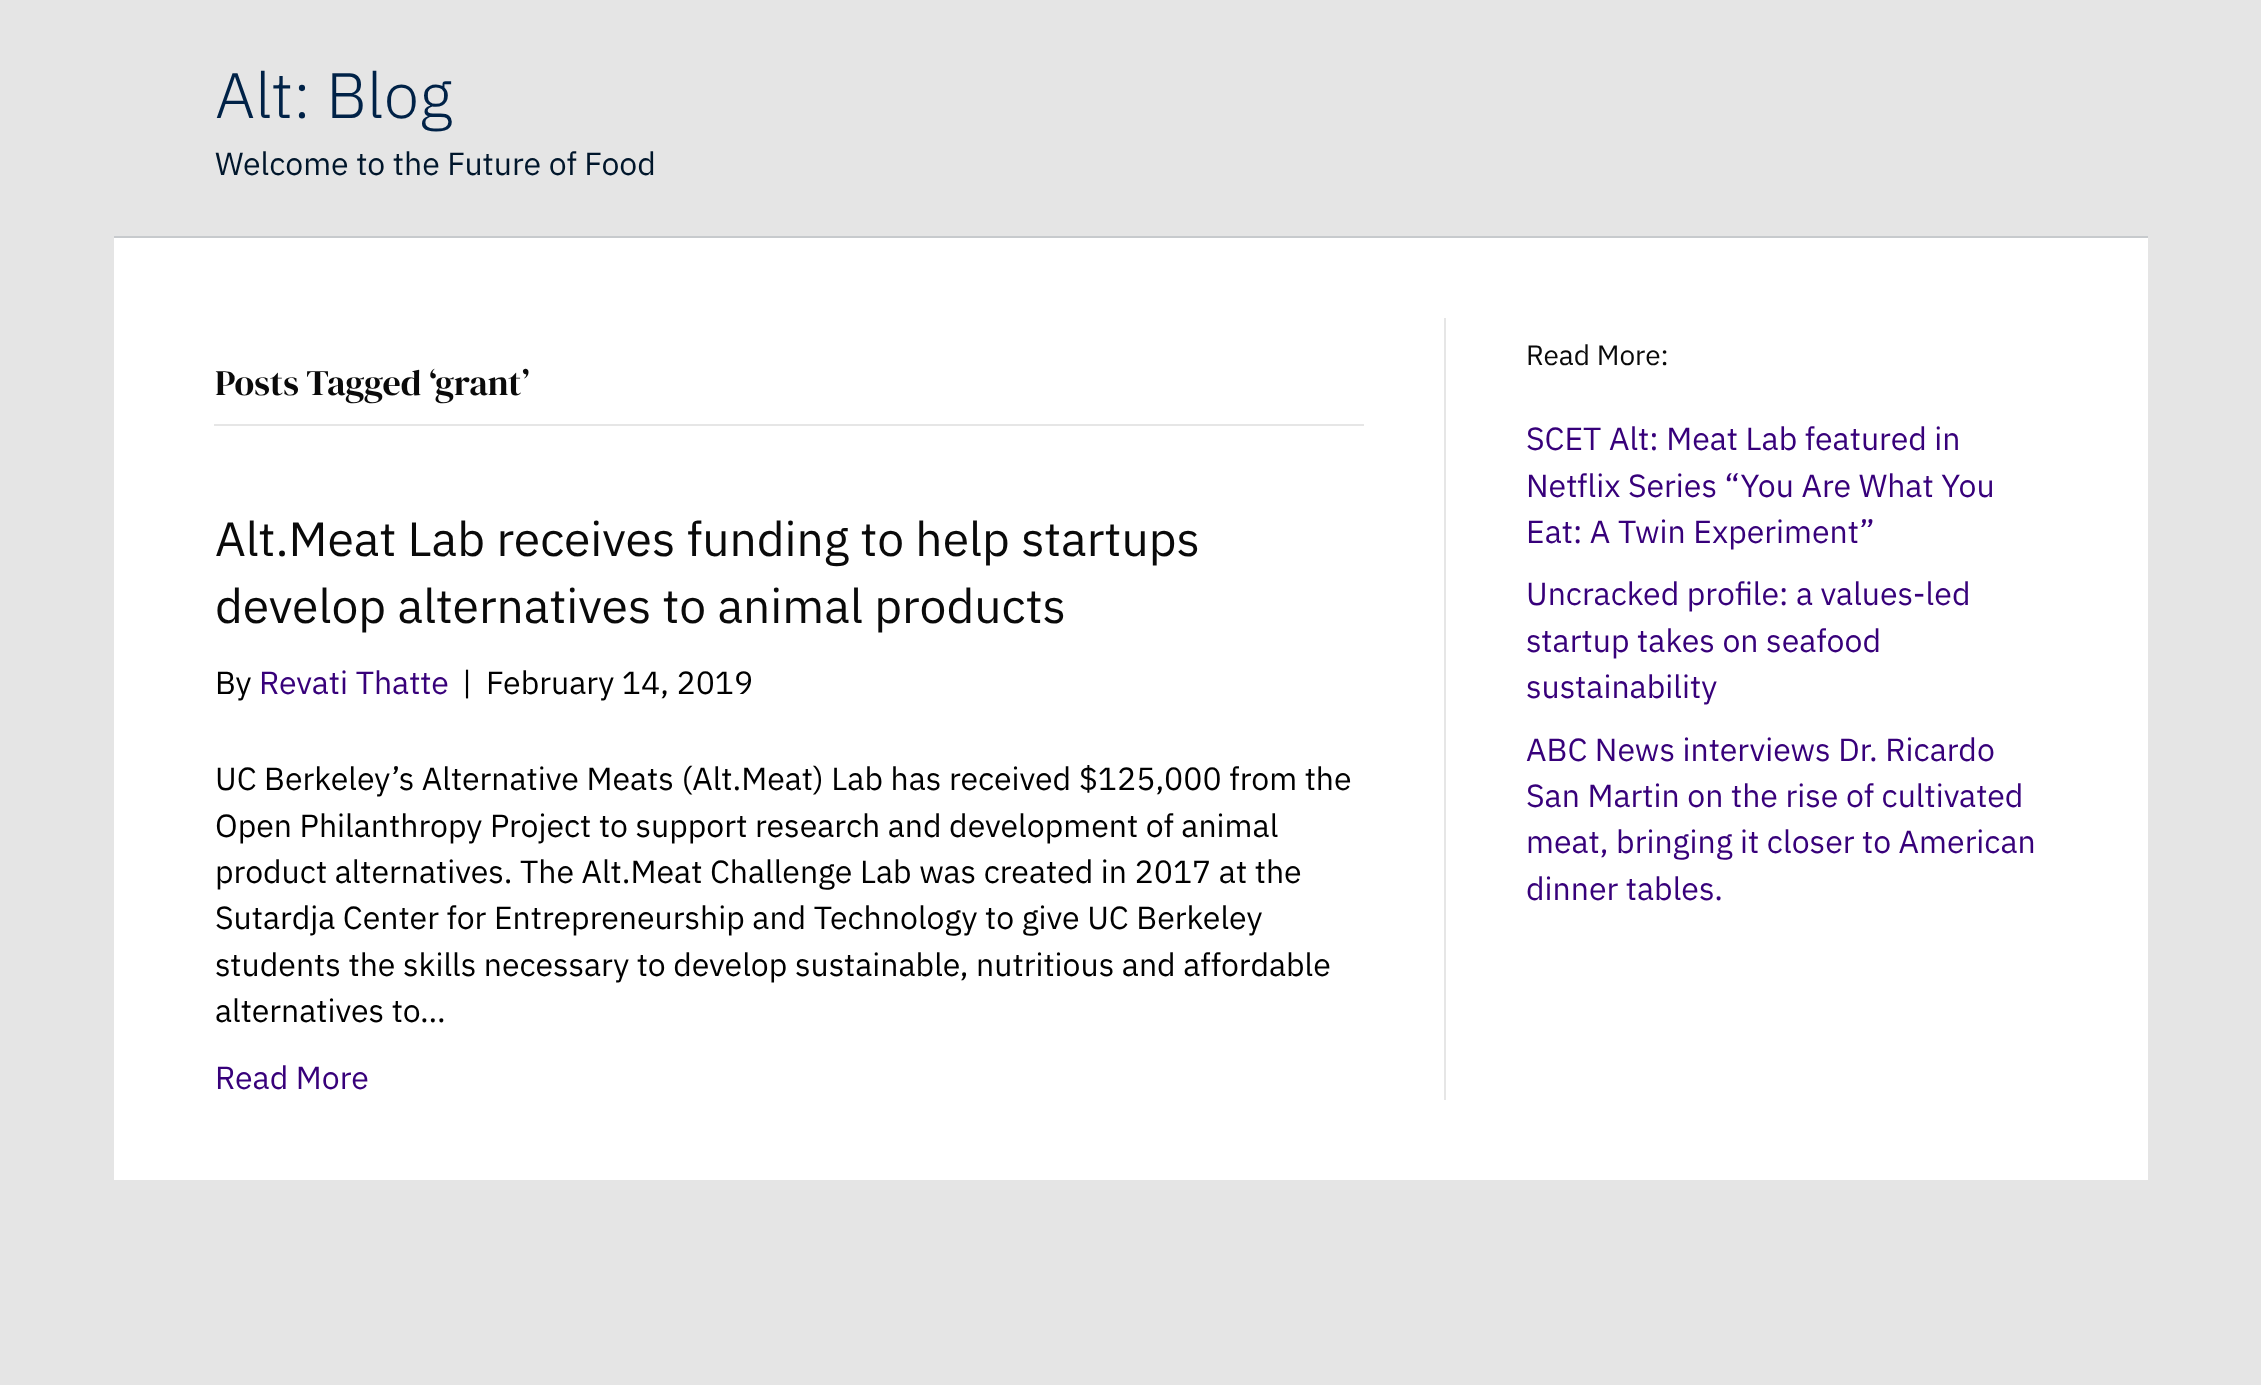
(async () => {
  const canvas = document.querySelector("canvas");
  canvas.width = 2261;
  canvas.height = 1385;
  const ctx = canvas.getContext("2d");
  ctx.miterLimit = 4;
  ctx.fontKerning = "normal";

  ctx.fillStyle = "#e5e5e5";
  ctx.fillRect(0, 0, 2261, 1385);
  for (const [x, y, w, h, color] of [
    [114, 236, 2034, 2, "#c7cacd"],
    [114, 238, 2034, 942, "#ffffff"],
    [1444, 318, 2, 782, "#e6e6e6"],
    [214, 424, 1150, 2, "#e6e6e6"],
  ]) {
    ctx.fillStyle = color;
    ctx.fillRect(x, y, w, h);
  }
  ctx.font = "300 64px IBM Plex Sans";
  ctx.fillStyle = "#002247";
  ctx.fillText("Alt: Blog", 215, 118);
  ctx.font = "32px IBM Plex Sans";
  ctx.fillStyle = "#00162b";
  ctx.fillText("Welcome to the Future of Food", 215, 175);
  ctx.font = "36px DM Serif Display";
  ctx.fillStyle = "#0a0a0a";
  ctx.fillText("Posts Tagged ‘grant’", 215, 395);
  ctx.font = "48px IBM Plex Sans";
  ctx.fillText("Alt.Meat Lab receives funding to help startups", 215, 556);
  ctx.fillText("develop alternatives to animal products", 215, 623);
  ctx.font = "32px IBM Plex Sans";
  ctx.fillStyle = "#000000";
  ctx.fillText("By", 215, 694);
  ctx.fillStyle = "#37007a";
  ctx.fillText("Revati Thatte", 259, 694);
  ctx.fillStyle = "#000000";
  for (const [text, x, y] of [
    ["|", 462, 694],
    ["February 14, 2019", 486, 694],
    ["UC Berkeley’s Alternative Meats (Alt.Meat) Lab has received $125,000 from the", 215, 790],
    ["Open Philanthropy Project to support research and development of animal", 215, 837],
    ["product alternatives. The Alt.Meat Challenge Lab was created in 2017 at the", 215, 883],
    ["Sutardja Center for Entrepreneurship and Technology to give UC Berkeley", 215, 929],
    ["students the skills necessary to develop sustainable, nutritious and affordable", 215, 976],
    ["alternatives to…", 215, 1022],
  ]) {
    ctx.fillText(text, x, y);
  }
  ctx.fillStyle = "#37007a";
  ctx.fillText("Read More", 215, 1089);
  ctx.font = "28px IBM Plex Sans";
  ctx.fillStyle = "#0a0a0a";
  ctx.fillText("Read More:", 1526, 365);
  ctx.font = "32px IBM Plex Sans";
  ctx.fillStyle = "#37007a";
  for (const [text, x, y] of [
    ["SCET Alt: Meat Lab featured in", 1526, 450],
    ["Netflix Series “You Are What You", 1526, 497],
    ["Eat: A Twin Experiment”", 1526, 543],
    ["Uncracked profile: a values-led", 1526, 605],
    ["startup takes on seafood", 1526, 652],
    ["sustainability", 1526, 698],
    ["ABC News interviews Dr. Ricardo", 1526, 761],
    ["San Martin on the rise of cultivated", 1526, 807],
    ["meat, bringing it closer to American", 1526, 853],
    ["dinner tables.", 1526, 900],
  ]) {
    ctx.fillText(text, x, y);
  }
})();
